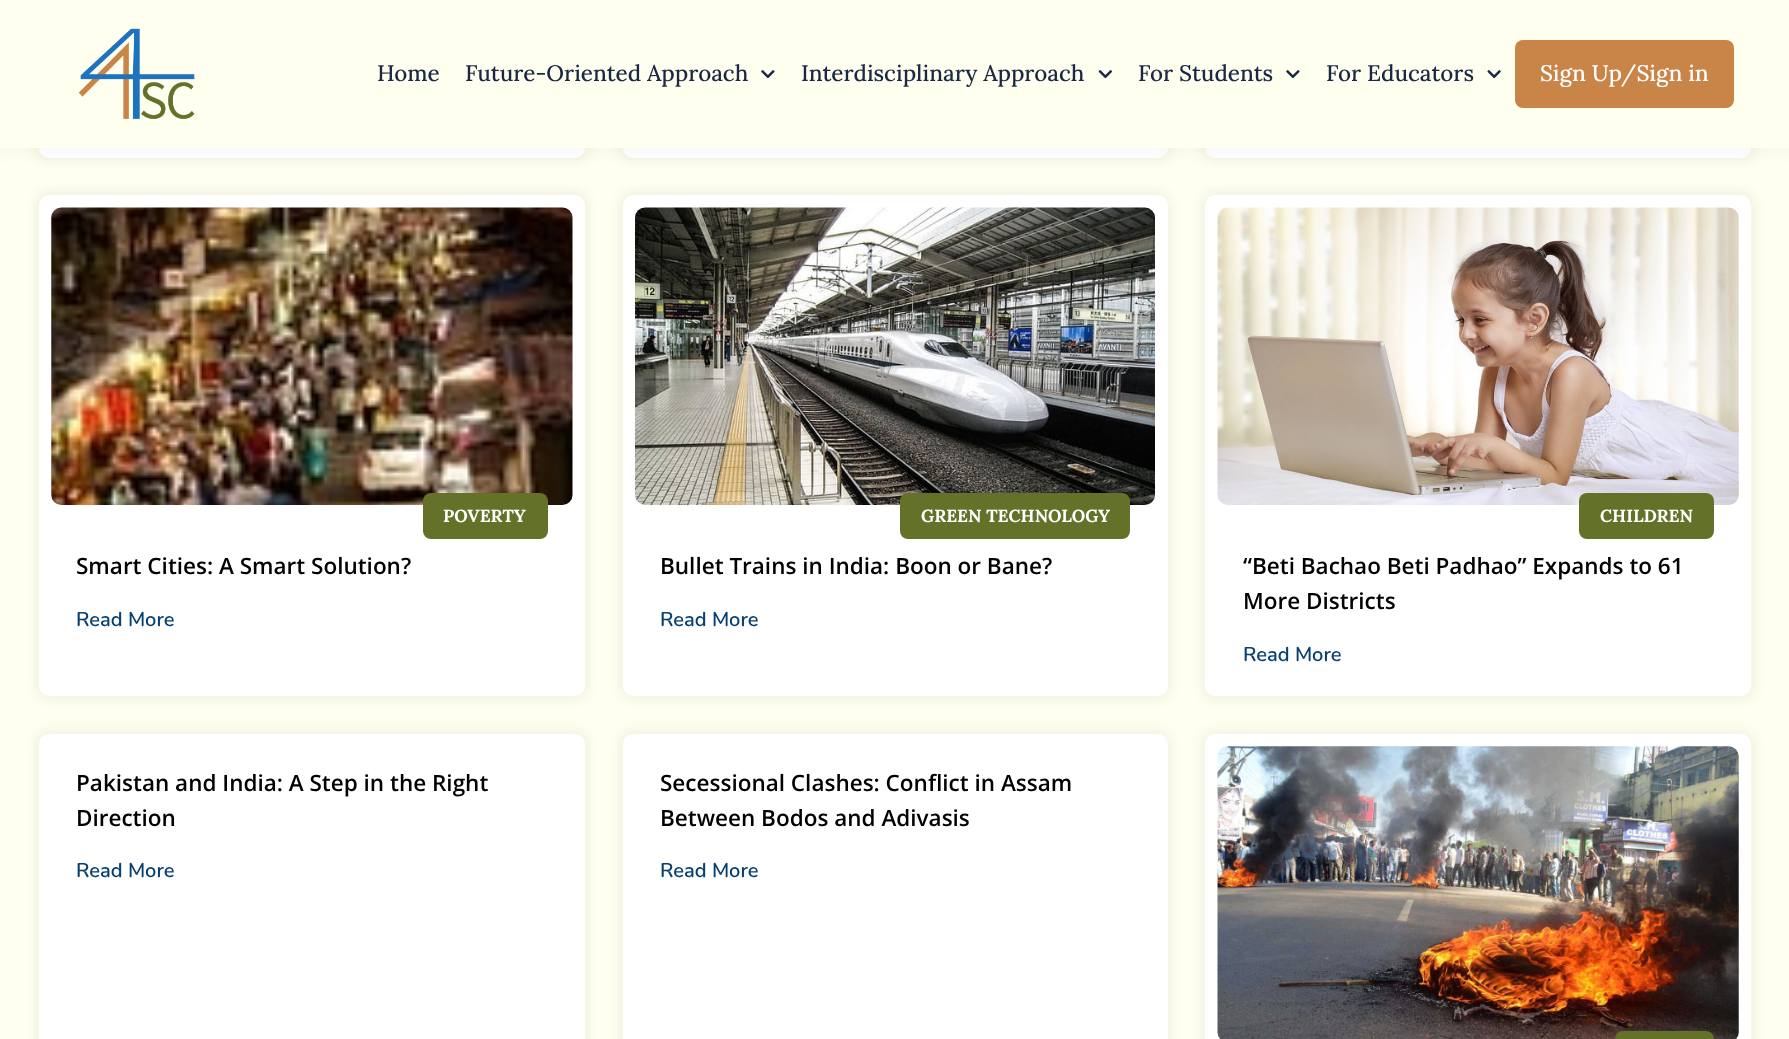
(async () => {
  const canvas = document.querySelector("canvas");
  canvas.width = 1789;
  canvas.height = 1039;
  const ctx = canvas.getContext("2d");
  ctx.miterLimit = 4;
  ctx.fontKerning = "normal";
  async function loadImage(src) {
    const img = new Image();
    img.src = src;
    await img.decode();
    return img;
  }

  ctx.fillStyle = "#fffff0";
  ctx.fillRect(0, 0, 1789, 1039);
  ctx.fillStyle = "rgba(0, 0, 0, 0.05)";
  ctx.filter = "blur(6px)";
  ctx.beginPath();
  ctx.roundRect(35, -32, 554, 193, 14);
  ctx.fill();
  ctx.filter = "none";
  ctx.beginPath();
  ctx.roundRect(45.5, -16.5, 533, 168, 3.5);
  ctx.strokeStyle = "#ffffff";
  ctx.lineWidth = 13;
  ctx.stroke();
  ctx.filter = "blur(6px)";
  ctx.beginPath();
  ctx.roundRect(619, -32, 552, 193, 14);
  ctx.fill();
  ctx.filter = "none";
  ctx.beginPath();
  ctx.roundRect(629.5, -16.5, 532, 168, 3.5);
  ctx.stroke();
  ctx.filter = "blur(6px)";
  ctx.beginPath();
  ctx.roundRect(1201, -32, 554, 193, 14);
  ctx.fill();
  ctx.filter = "none";
  ctx.beginPath();
  ctx.roundRect(1211.5, -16.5, 533, 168, 3.5);
  ctx.stroke();
  ctx.fillStyle = "rgba(0, 0, 0, 0.04)";
  ctx.filter = "blur(9.5px)";
  ctx.beginPath();
  ctx.rect(-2, -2, 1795, 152);
  ctx.fill();
  ctx.filter = "none";
  ctx.fillStyle = "#fffff0";
  ctx.fillRect(0, 0, 1789, 148);
  ctx.drawImage(await loadImage("img/1.png"), 78, 28, 117, 92);
  ctx.drawImage(await loadImage("img/2.png"), 761, 70, 14, 9);
  ctx.drawImage(await loadImage("img/3.png"), 1098, 70, 14, 9);
  ctx.drawImage(await loadImage("img/2.png"), 1286, 70, 14, 9);
  ctx.drawImage(await loadImage("img/4.png"), 1487, 70, 14, 9);
  ctx.fillStyle = "#c98548";
  ctx.beginPath();
  ctx.roundRect(1515, 40, 219, 68, 8);
  ctx.fill();
  ctx.fillStyle = "rgba(0, 0, 0, 0.05)";
  ctx.filter = "blur(6px)";
  ctx.beginPath();
  ctx.roundRect(35, 191, 554, 509, 14);
  ctx.fill();
  ctx.filter = "none";
  ctx.fillStyle = "#ffffff";
  ctx.beginPath();
  ctx.roundRect(45.5, 201.5, 533, 488, 3.5);
  ctx.fill();
  ctx.stroke();
  ctx.drawImage(await loadImage("img/5.png"), 51, 207, 522, 298);
  ctx.fillStyle = "#647129";
  ctx.beginPath();
  ctx.roundRect(423, 493, 125, 46, 8);
  ctx.fill();
  ctx.fillStyle = "rgba(0, 0, 0, 0.05)";
  ctx.filter = "blur(6px)";
  ctx.beginPath();
  ctx.roundRect(619, 191, 552, 509, 14);
  ctx.fill();
  ctx.filter = "none";
  ctx.fillStyle = "#ffffff";
  ctx.beginPath();
  ctx.roundRect(629.5, 201.5, 532, 488, 3.5);
  ctx.fill();
  ctx.stroke();
  ctx.drawImage(await loadImage("img/6.png"), 635, 207, 520, 298);
  ctx.fillStyle = "#647129";
  ctx.beginPath();
  ctx.roundRect(900, 493, 230, 46, 8);
  ctx.fill();
  ctx.fillStyle = "rgba(0, 0, 0, 0.05)";
  ctx.filter = "blur(6px)";
  ctx.beginPath();
  ctx.roundRect(1201, 191, 554, 509, 14);
  ctx.fill();
  ctx.filter = "none";
  ctx.fillStyle = "#ffffff";
  ctx.beginPath();
  ctx.roundRect(1211.5, 201.5, 533, 488, 3.5);
  ctx.fill();
  ctx.stroke();
  ctx.drawImage(await loadImage("img/7.png"), 1217, 207, 522, 298);
  ctx.fillStyle = "#647129";
  ctx.beginPath();
  ctx.roundRect(1579, 493, 135, 46, 8);
  ctx.fill();
  ctx.fillStyle = "rgba(0, 0, 0, 0.05)";
  ctx.filter = "blur(6px)";
  ctx.beginPath();
  ctx.roundRect(35, 730, 554, 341, 14);
  ctx.fill();
  ctx.filter = "none";
  ctx.fillStyle = "#ffffff";
  ctx.beginPath();
  ctx.roundRect(45.5, 740.5, 533, 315, 3.5);
  ctx.fill();
  ctx.stroke();
  ctx.fillStyle = "rgba(0, 0, 0, 0.05)";
  ctx.filter = "blur(6px)";
  ctx.beginPath();
  ctx.roundRect(619, 730, 552, 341, 14);
  ctx.fill();
  ctx.filter = "none";
  ctx.fillStyle = "#ffffff";
  ctx.beginPath();
  ctx.roundRect(629.5, 740.5, 532, 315, 3.5);
  ctx.fill();
  ctx.stroke();
  ctx.fillStyle = "rgba(0, 0, 0, 0.05)";
  ctx.filter = "blur(6px)";
  ctx.beginPath();
  ctx.roundRect(1201, 730, 554, 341, 14);
  ctx.fill();
  ctx.filter = "none";
  ctx.fillStyle = "#ffffff";
  ctx.beginPath();
  ctx.roundRect(1211.5, 740.5, 533, 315, 3.5);
  ctx.fill();
  ctx.stroke();
  ctx.drawImage(await loadImage("img/8.png"), 1217, 746, 522, 293);
  ctx.fillStyle = "#647129";
  ctx.beginPath();
  ctx.roundRect(1615, 1031, 99, 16, 8);
  ctx.fill();
  ctx.font = "500 22.5px Lora";
  ctx.fillStyle = "#1a2844";
  for (const [text, x, y] of [
    ["Home", 377, 81],
    ["Future-Oriented Approach", 465, 81],
    ["Interdisciplinary Approach", 801, 81],
    ["For Students", 1138, 81],
    ["For Educators", 1326, 81],
  ]) {
    ctx.fillText(text, x, y);
  }
  ctx.fillStyle = "#ffffff";
  ctx.fillText("Sign Up/Sign in", 1540, 81);
  ctx.font = "bold 17.5px Lora";
  ctx.fillText("POVERTY", 443, 522);
  ctx.font = "600 22.5px Open Sans";
  ctx.fillStyle = "#000000";
  ctx.fillText("Smart Cities: A Smart Solution?", 76, 574);
  ctx.font = "600 20px Nunito";
  ctx.fillStyle = "#073f71";
  ctx.fillText("Read More", 76, 626);
  ctx.font = "bold 17.5px Lora";
  ctx.fillStyle = "#ffffff";
  ctx.fillText("GREEN TECHNOLOGY", 921, 522);
  ctx.font = "600 22.5px Open Sans";
  ctx.fillStyle = "#000000";
  ctx.fillText("Bullet Trains in India: Boon or Bane?", 660, 574);
  ctx.font = "600 20px Nunito";
  ctx.fillStyle = "#073f71";
  ctx.fillText("Read More", 660, 626);
  ctx.font = "bold 17.5px Lora";
  ctx.fillStyle = "#ffffff";
  ctx.fillText("CHILDREN", 1600, 522);
  ctx.font = "600 22.5px Open Sans";
  ctx.fillStyle = "#000000";
  ctx.fillText("“Beti Bachao Beti Padhao” Expands to 61", 1243, 574);
  ctx.fillText("More Districts", 1243, 609);
  ctx.font = "600 20px Nunito";
  ctx.fillStyle = "#073f71";
  ctx.fillText("Read More", 1243, 661);
  ctx.font = "600 22.5px Open Sans";
  ctx.fillStyle = "#000000";
  ctx.fillText("Pakistan and India: A Step in the Right", 76, 791);
  ctx.fillText("Direction", 76, 826);
  ctx.font = "600 20px Nunito";
  ctx.fillStyle = "#073f71";
  ctx.fillText("Read More", 76, 877);
  ctx.font = "600 22.5px Open Sans";
  ctx.fillStyle = "#000000";
  ctx.fillText("Secessional Clashes: Conflict in Assam", 660, 791);
  ctx.fillText("Between Bodos and Adivasis", 660, 826);
  ctx.font = "600 20px Nunito";
  ctx.fillStyle = "#073f71";
  ctx.fillText("Read More", 660, 877);
})();
